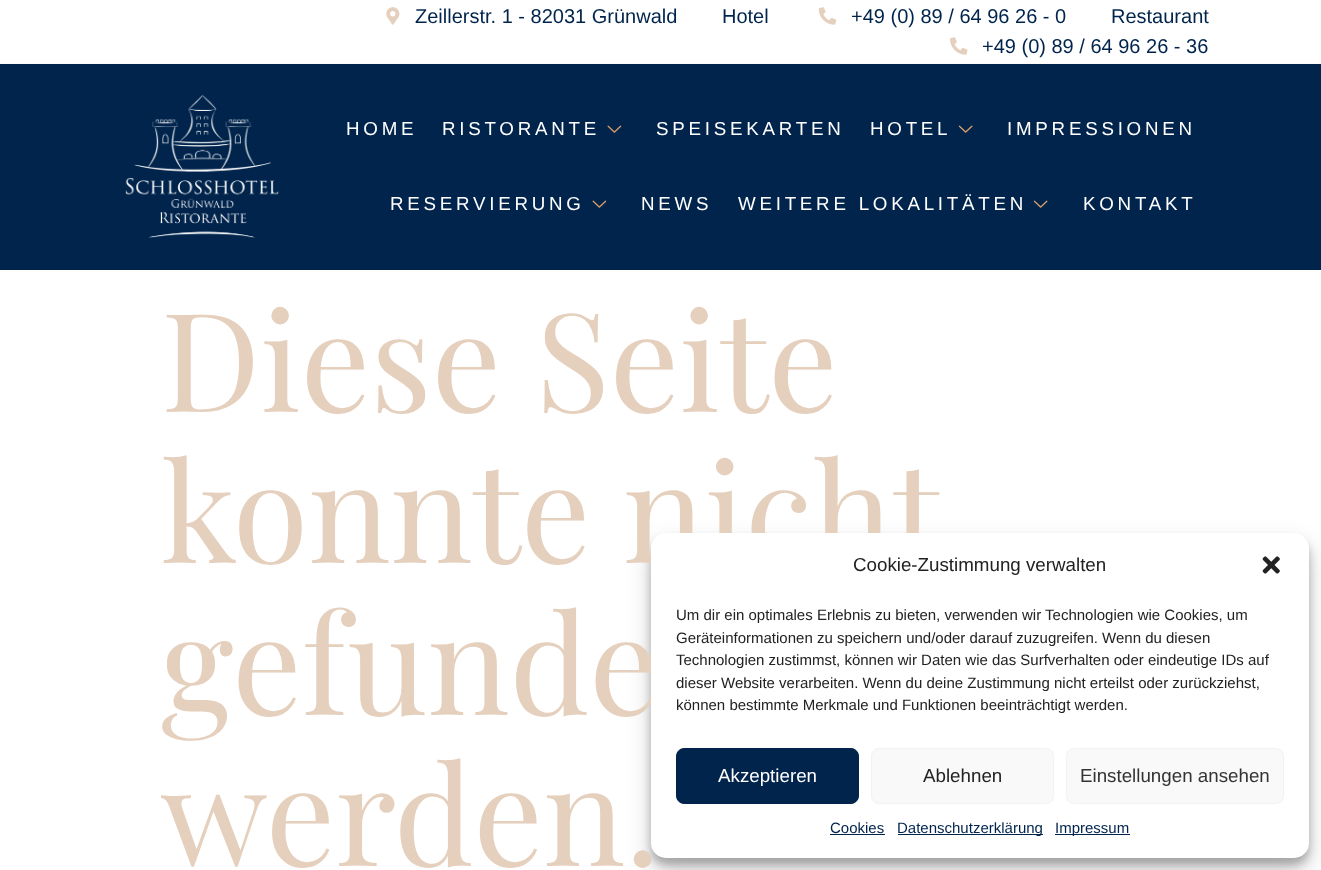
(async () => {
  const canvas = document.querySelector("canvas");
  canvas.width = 1321;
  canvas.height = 870;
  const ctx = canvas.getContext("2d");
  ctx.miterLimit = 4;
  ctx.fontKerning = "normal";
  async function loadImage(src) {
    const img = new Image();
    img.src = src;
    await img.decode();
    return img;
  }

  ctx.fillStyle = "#ffffff";
  ctx.fillRect(0, 0, 1321, 870);
  ctx.fillStyle = "#fcf9f6";
  ctx.fillRect(0, 63, 1321, 1);
  ctx.drawImage(await loadImage("img/1.png"), 386, 7, 14, 18);
  ctx.drawImage(await loadImage("img/2.png"), 818, 7, 19, 18);
  ctx.drawImage(await loadImage("img/3.png"), 950, 37, 18, 18);
  ctx.fillStyle = "#00244c";
  ctx.fillRect(0, 64, 1321, 206);
  ctx.drawImage(await loadImage("img/4.png"), 125, 94, 154, 144);
  ctx.drawImage(await loadImage("img/5.png"), 607, 125, 15, 8);
  ctx.drawImage(await loadImage("img/6.png"), 958, 125, 15, 8);
  ctx.drawImage(await loadImage("img/5.png"), 592, 200, 15, 8);
  ctx.drawImage(await loadImage("img/6.png"), 1033, 200, 15, 8);
  ctx.fillStyle = "rgba(0, 0, 0, 0.23)";
  ctx.filter = "blur(4px)";
  ctx.beginPath();
  ctx.roundRect(651, 540, 658, 325, 15);
  ctx.fill();
  ctx.filter = "none";
  ctx.fillStyle = "rgba(0, 0, 0, 0.19)";
  ctx.filter = "blur(12.5px)";
  ctx.beginPath();
  ctx.roundRect(651, 545, 658, 325, 15);
  ctx.fill();
  ctx.filter = "none";
  ctx.font = "20px Liberation Sans";
  ctx.fillStyle = "#00244c";
  for (const [text, x, y] of [
    ["Zeillerstr. 1 - 82031 Grünwald", 415, 23],
    ["Hotel", 722, 23],
    ["+49 (0) 89 / 64 96 26 - 0", 851, 23],
    ["Restaurant", 1111, 23],
    ["+49 (0) 89 / 64 96 26 - 36", 982, 53],
  ]) {
    ctx.fillText(text, x, y);
  }
  ctx.letterSpacing = "3.75px";
  ctx.font = "18.75px Liberation Sans";
  ctx.fillStyle = "#ffffff";
  for (const [text, x, y] of [
    ["HOME", 346, 135],
    ["RISTORANTE", 442, 135],
    ["SPEISEKARTEN", 656, 135],
    ["HOTEL", 870, 135],
    ["IMPRESSIONEN", 1007, 135],
    ["RESERVIERUNG", 390, 210],
    ["NEWS", 641, 210],
    ["WEITERE LOKALITÄTEN", 738, 210],
    ["KONTAKT", 1083, 210],
  ]) {
    ctx.fillText(text, x, y);
  }
  ctx.letterSpacing = "0px";
  ctx.font = "137.5px Playfair Display";
  ctx.fillStyle = "#e5cfbd";
  ctx.fillText("Diese Seite", 161, 412);
  ctx.wordSpacing = "-2px";
  ctx.fillText("konnte nicht", 161, 563);
  ctx.wordSpacing = "0px";
  ctx.fillText("gefunde", 161, 715);
  ctx.fillText("werden.", 161, 866);
  ctx.fillStyle = "#ffffff";
  ctx.beginPath();
  ctx.roundRect(651, 533, 658, 325, 15);
  ctx.fill();
  ctx.font = "18.75px Liberation Sans";
  ctx.fillStyle = "#222222";
  ctx.fillText("Cookie-Zustimmung verwalten", 853, 571);
  ctx.drawImage(await loadImage("img/7.png"), 1262, 556, 18, 18);
  ctx.font = "15px Liberation Sans";
  for (const [text, x, y] of [
    ["Um dir ein optimales Erlebnis zu bieten, verwenden wir Technologien wie Cookies, um", 676, 620],
    ["Geräteinformationen zu speichern und/oder darauf zuzugreifen. Wenn du diesen", 676, 643],
    ["Technologien zustimmst, können wir Daten wie das Surfverhalten oder eindeutige IDs auf", 676, 665],
    ["dieser Website verarbeiten. Wenn du deine Zustimmung nicht erteilst oder zurückziehst,", 676, 688],
    ["können bestimmte Merkmale und Funktionen beeinträchtigt werden.", 676, 710],
  ]) {
    ctx.fillText(text, x, y);
  }
  ctx.fillStyle = "#00244c";
  ctx.beginPath();
  ctx.roundRect(676.5, 748.5, 182, 55, 7.5);
  ctx.fill();
  ctx.strokeStyle = "#00244c";
  ctx.stroke();
  ctx.font = "18.75px Liberation Sans";
  ctx.fillStyle = "#ffffff";
  ctx.fillText("Akzeptieren", 718, 782);
  ctx.fillStyle = "#f9f9f9";
  ctx.beginPath();
  ctx.roundRect(871.5, 748.5, 182, 55, 7.5);
  ctx.fill();
  ctx.strokeStyle = "#f2f2f2";
  ctx.stroke();
  ctx.fillStyle = "#222222";
  ctx.fillText("Ablehnen", 923, 782);
  ctx.fillStyle = "#f9f9f9";
  ctx.beginPath();
  ctx.roundRect(1066.5, 748.5, 217, 55, 7.5);
  ctx.fill();
  ctx.stroke();
  ctx.fillStyle = "#333333";
  ctx.fillText("Einstellungen ansehen", 1080, 782);
  ctx.font = "15px Liberation Sans";
  ctx.fillStyle = "#00244c";
  ctx.fillText("Cookies", 830, 833);
  ctx.fillRect(830, 834, 55, 1);
  ctx.fillRect(898, 834, 145, 1);
  ctx.fillText("Datenschutzerklärung", 897, 833);
  ctx.fillRect(1055, 834, 75, 1);
  ctx.fillText("Impressum", 1055, 833);
})();
